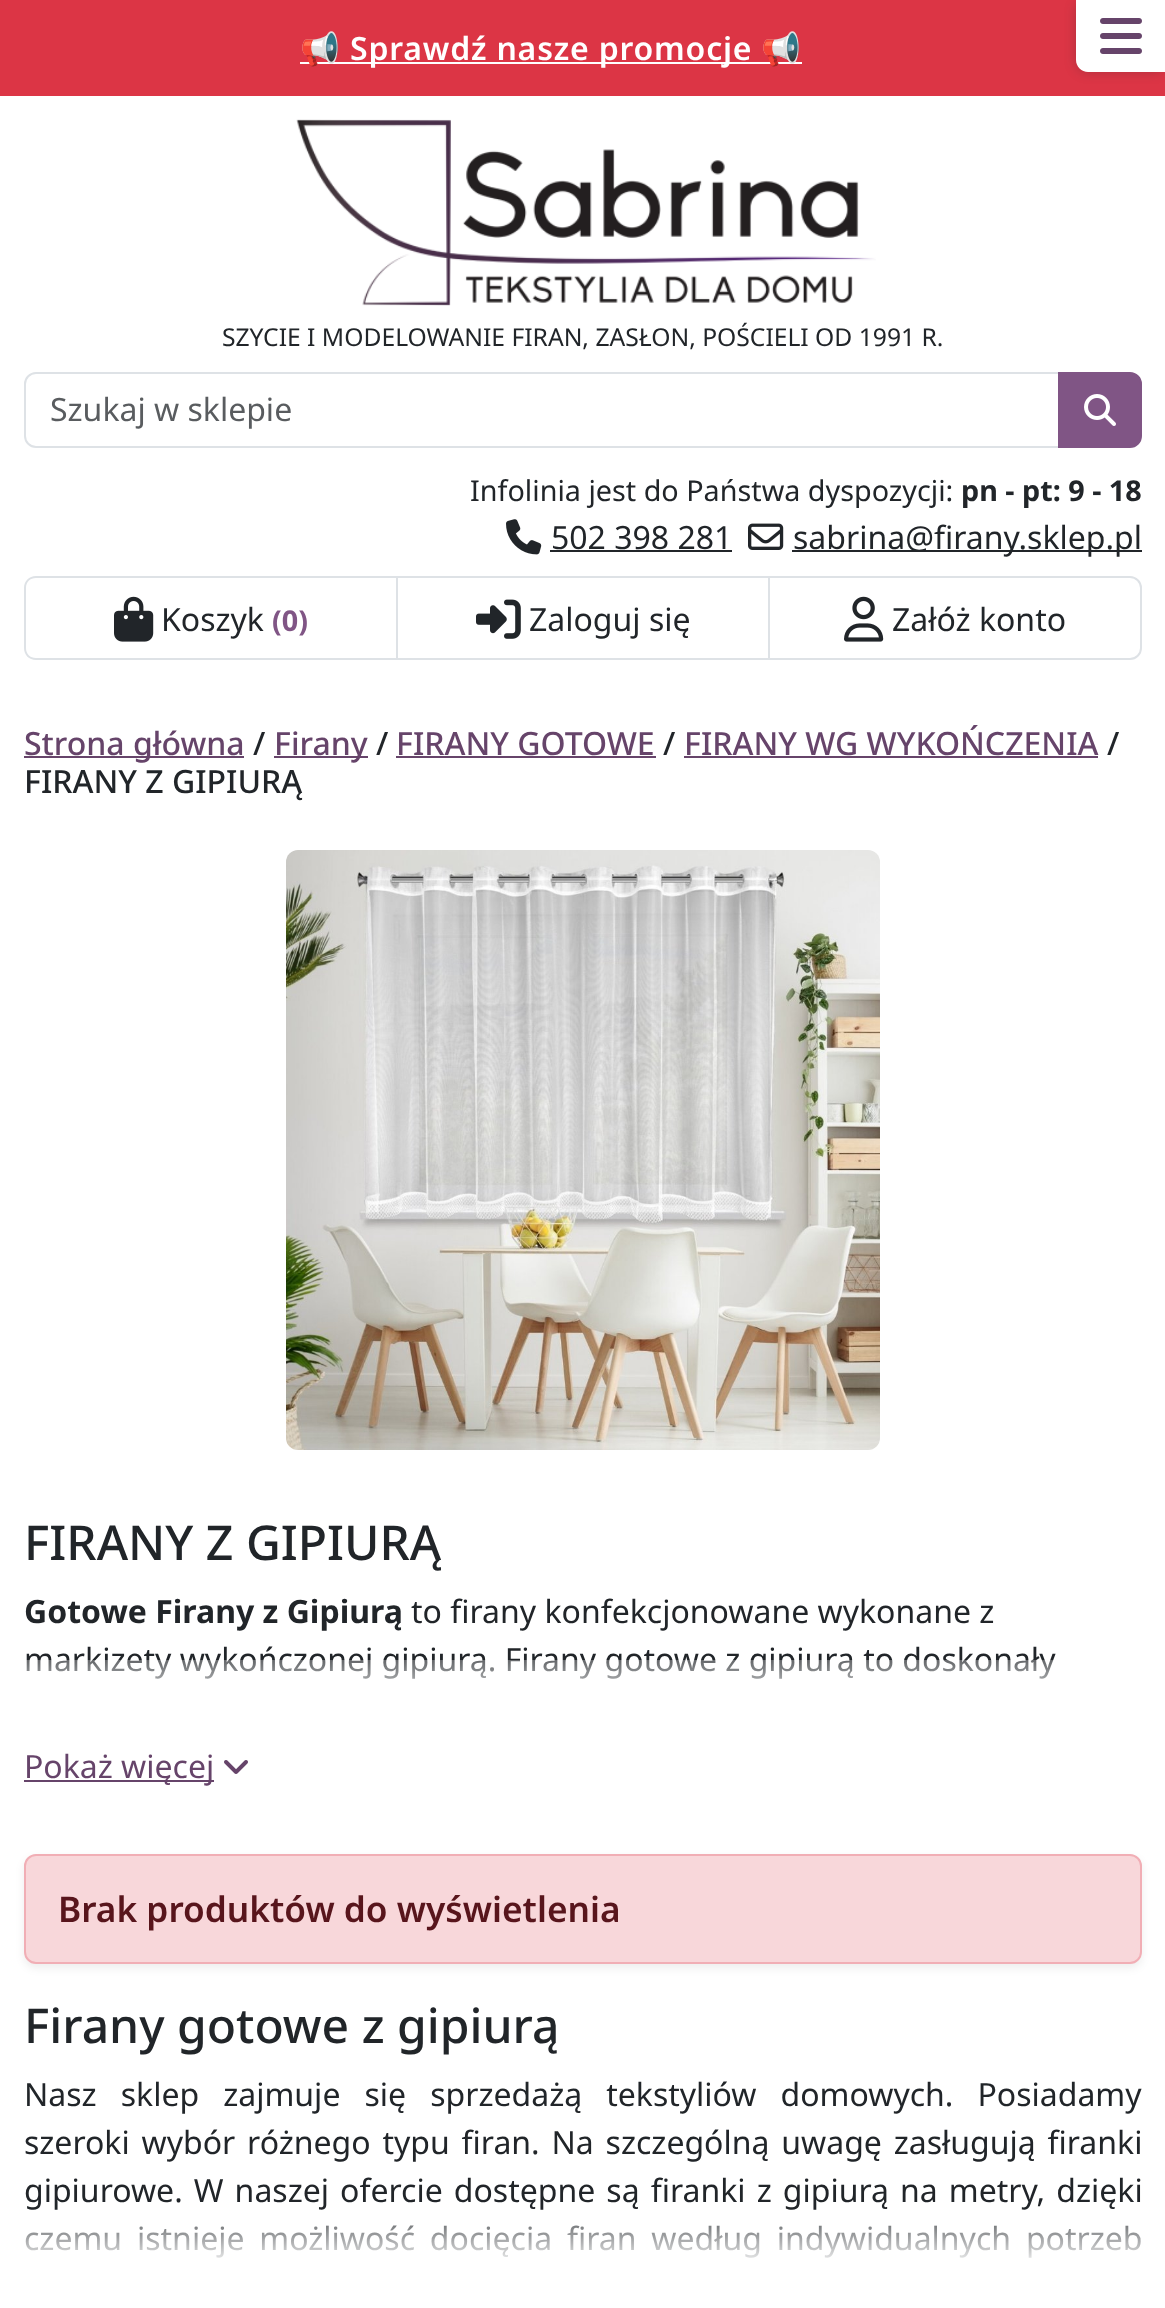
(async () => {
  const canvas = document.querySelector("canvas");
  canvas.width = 1165;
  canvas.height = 2308;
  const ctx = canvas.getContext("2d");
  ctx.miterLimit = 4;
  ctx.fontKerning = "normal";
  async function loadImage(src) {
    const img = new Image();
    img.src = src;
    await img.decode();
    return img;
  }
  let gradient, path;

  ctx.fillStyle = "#ffffff";
  ctx.fillRect(0, 0, 1165, 2308);
  ctx.fillStyle = "#dc3545";
  ctx.fillRect(0, 0, 1165, 96);
  ctx.fillStyle = "#ffffff";
  ctx.fillRect(300, 62, 502, 2);
  ctx.fillStyle = "rgba(33, 37, 41, 0.25)";
  ctx.filter = "blur(6px)";
  ctx.beginPath();
  ctx.roundRect(1076, 0, 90, 72, 12);
  ctx.fill();
  ctx.filter = "none";
  ctx.fillStyle = "#ffffff";
  path = new Path2D("M1076 0H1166V72H1088C1081.5 72 1076 66.5 1076 60Z");
  ctx.fill(path);
  ctx.drawImage(await loadImage("img/1.png"), 1100, 18, 42, 36);
  ctx.drawImage(await loadImage("img/2.png"), 296, 119, 580, 187);
  ctx.beginPath();
  ctx.roundRect(25, 373, 1034, 74, [11, 0, 0, 11]);
  ctx.strokeStyle = "#dee2e6";
  ctx.lineWidth = 2;
  ctx.stroke();
  ctx.fillStyle = "#805585";
  ctx.beginPath();
  ctx.roundRect(1059, 373, 82, 74, [0, 11, 11, 0]);
  ctx.fill();
  ctx.strokeStyle = "#805585";
  ctx.stroke();
  ctx.drawImage(await loadImage("img/3.png"), 1084, 394, 32, 32);
  ctx.drawImage(await loadImage("img/4.png"), 506, 519, 36, 36);
  ctx.fillStyle = "#212529";
  ctx.fillRect(550, 550, 182, 2);
  ctx.drawImage(await loadImage("img/5.png"), 748, 523, 36, 27);
  ctx.fillRect(792, 550, 350, 2);
  ctx.fillStyle = "#dee2e6";
  path = new Path2D("M36 576H396V660H36C29 660 24 655 24 648V588C24 581 29 576 36 576ZM36 578H396V658H36C30 658 26 654 26 648V588C26 582 30 578 36 578Z");
  ctx.fill(path, "evenodd");
  ctx.drawImage(await loadImage("img/6.png"), 114, 596, 40, 46);
  for (const [x, y, w, h, color] of [
    [396, 576, 372, 2, "#dee2e6"],
    [396, 658, 372, 2, "#dee2e6"],
    [396, 576, 2, 84, "#dee2e6"],
  ]) {
    ctx.fillStyle = color;
    ctx.fillRect(x, y, w, h);
  }
  ctx.drawImage(await loadImage("img/7.png"), 476, 599, 45, 40);
  ctx.beginPath();
  ctx.roundRect(769, 577, 372, 82, [0, 11, 11, 0]);
  ctx.strokeStyle = "#dee2e6";
  ctx.stroke();
  ctx.drawImage(await loadImage("img/8.png"), 844, 596, 40, 46);
  for (const [x, y, w, h, color] of [
    [24, 756, 220, 2, "#66446a"],
    [274, 756, 94, 2, "#66446a"],
    [396, 756, 260, 2, "#66446a"],
    [684, 756, 414, 2, "#66446a"],
  ]) {
    ctx.fillStyle = color;
    ctx.fillRect(x, y, w, h);
  }
  ctx.drawImage(await loadImage("img/9.png"), 286, 850, 594, 600);
  ctx.fillRect(24, 1780, 190, 2);
  ctx.drawImage(await loadImage("img/10.png"), 224, 1760, 24, 14);
  ctx.fillStyle = "rgba(0, 0, 0, 0.07)";
  ctx.filter = "blur(4px)";
  ctx.beginPath();
  ctx.roundRect(24, 1858, 1118, 110, 12);
  ctx.fill();
  ctx.filter = "none";
  ctx.fillStyle = "#f8d7da";
  ctx.beginPath();
  ctx.roundRect(25, 1855, 1116, 108, 11);
  ctx.fill();
  ctx.strokeStyle = "#f1aeb5";
  ctx.stroke();
  ctx.letterSpacing = "0.8px";
  ctx.font = "32px Noto Color Emoji";
  ctx.fillStyle = "#ffffff";
  ctx.fillText("📢", 300, 60);
  ctx.font = "600 32px Noto Sans";
  ctx.fillText("Sprawdź nasze promocje", 350, 60);
  ctx.font = "32px Noto Color Emoji";
  ctx.fillText("📢", 761, 60);
  ctx.letterSpacing = "0px";
  ctx.font = "24.65px Noto Sans";
  ctx.fillStyle = "#212529";
  ctx.fillText("SZYCIE I MODELOWANIE FIRAN, ZASŁON, POŚCIELI OD 1991 R.", 222, 346);
  ctx.font = "32px Noto Sans";
  ctx.fillStyle = "#595c5f";
  ctx.fillText("Szukaj w sklepie", 50, 421);
  ctx.font = "28.75px Noto Sans";
  ctx.fillStyle = "#212529";
  ctx.fillText("Infolinia jest do Państwa dyspozycji:", 470, 501);
  ctx.font = "bold 28.75px Noto Sans";
  ctx.fillText("pn - pt: 9 - 18", 961, 501);
  ctx.font = "32px Noto Sans";
  for (const [text, x, y] of [
    ["502 398 281", 551, 549],
    ["sabrina@firany.sklep.pl", 793, 549],
    ["Koszyk", 161, 631],
  ]) {
    ctx.fillText(text, x, y);
  }
  ctx.font = "bold 28.75px Noto Sans";
  ctx.fillStyle = "#805585";
  ctx.fillText("(0)", 272, 631);
  ctx.font = "32px Noto Sans";
  ctx.fillStyle = "#212529";
  ctx.fillText("Zaloguj się", 529, 631);
  ctx.fillText("Załóż konto", 892, 631);
  ctx.font = "500 32px Noto Sans";
  ctx.fillStyle = "#66446a";
  ctx.fillText("Strona główna", 24, 755);
  ctx.fillStyle = "#212529";
  ctx.fillText("/", 253, 755);
  ctx.fillStyle = "#66446a";
  ctx.fillText("Firany", 274, 755);
  ctx.fillStyle = "#212529";
  ctx.fillText("/", 376, 755);
  ctx.fillStyle = "#66446a";
  ctx.fillText("FIRANY GOTOWE", 396, 755);
  ctx.fillStyle = "#212529";
  ctx.fillText("/", 663, 755);
  ctx.fillStyle = "#66446a";
  ctx.fillText("FIRANY WG WYKOŃCZENIA", 684, 755);
  ctx.fillStyle = "#212529";
  ctx.fillText("/", 1107, 755);
  ctx.fillText("FIRANY Z GIPIURĄ", 24, 793);
  ctx.font = "500 48px Noto Sans";
  ctx.fillText("FIRANY Z GIPIURĄ", 24, 1560);
  ctx.font = "bold 32px Noto Sans";
  ctx.fillText("Gotowe Firany z Gipiurą", 24, 1623);
  ctx.font = "32px Noto Sans";
  ctx.fillText("to firany konfekcjonowane wykonane z", 411, 1623);
  ctx.fillText("markizety wykończonej gipiurą. Firany gotowe z gipiurą to doskonały", 24, 1671);
  gradient = ctx.createLinearGradient(583, 1660, 583, 1710);
  gradient.addColorStop(0, "rgba(255, 255, 255, 0.3)");
  gradient.addColorStop(1, "#ffffff");
  ctx.fillStyle = gradient;
  ctx.fillRect(26, 1660, 1027, 19);
  ctx.fillStyle = "#66446a";
  ctx.fillText("Pokaż więcej", 24, 1778);
  ctx.font = "600 35.25px Noto Sans";
  ctx.fillStyle = "#58151c";
  ctx.fillText("Brak produktów do wyświetlenia", 58, 1922);
  ctx.font = "500 48px Noto Sans";
  ctx.fillStyle = "#212529";
  ctx.fillText("Firany gotowe z gipiurą", 24, 2043);
  ctx.wordSpacing = "15.75px";
  ctx.font = "32px Noto Sans";
  ctx.fillText("Nasz sklep zajmuje się sprzedażą tekstyliów domowych. Posiadamy", 24, 2106);
  ctx.wordSpacing = "3.5px";
  ctx.fillText("szeroki wybór różnego typu firan. Na szczególną uwagę zasługują firanki", 24, 2154);
  ctx.wordSpacing = "2.75px";
  ctx.fillText("gipiurowe. W naszej ofercie dostępne są firanki z gipiurą na metry, dzięki", 24, 2202);
  ctx.wordSpacing = "6.5px";
  ctx.fillText("czemu istnieje możliwość docięcia firan według indywidualnych potrzeb", 24, 2250);
  gradient = ctx.createLinearGradient(583, 2218, 583, 2268);
  gradient.addColorStop(0, "rgba(255, 255, 255, 0.3)");
  gradient.addColorStop(1, "#ffffff");
  ctx.fillStyle = gradient;
  ctx.fillRect(25, 2225, 1116, 33);
})();
